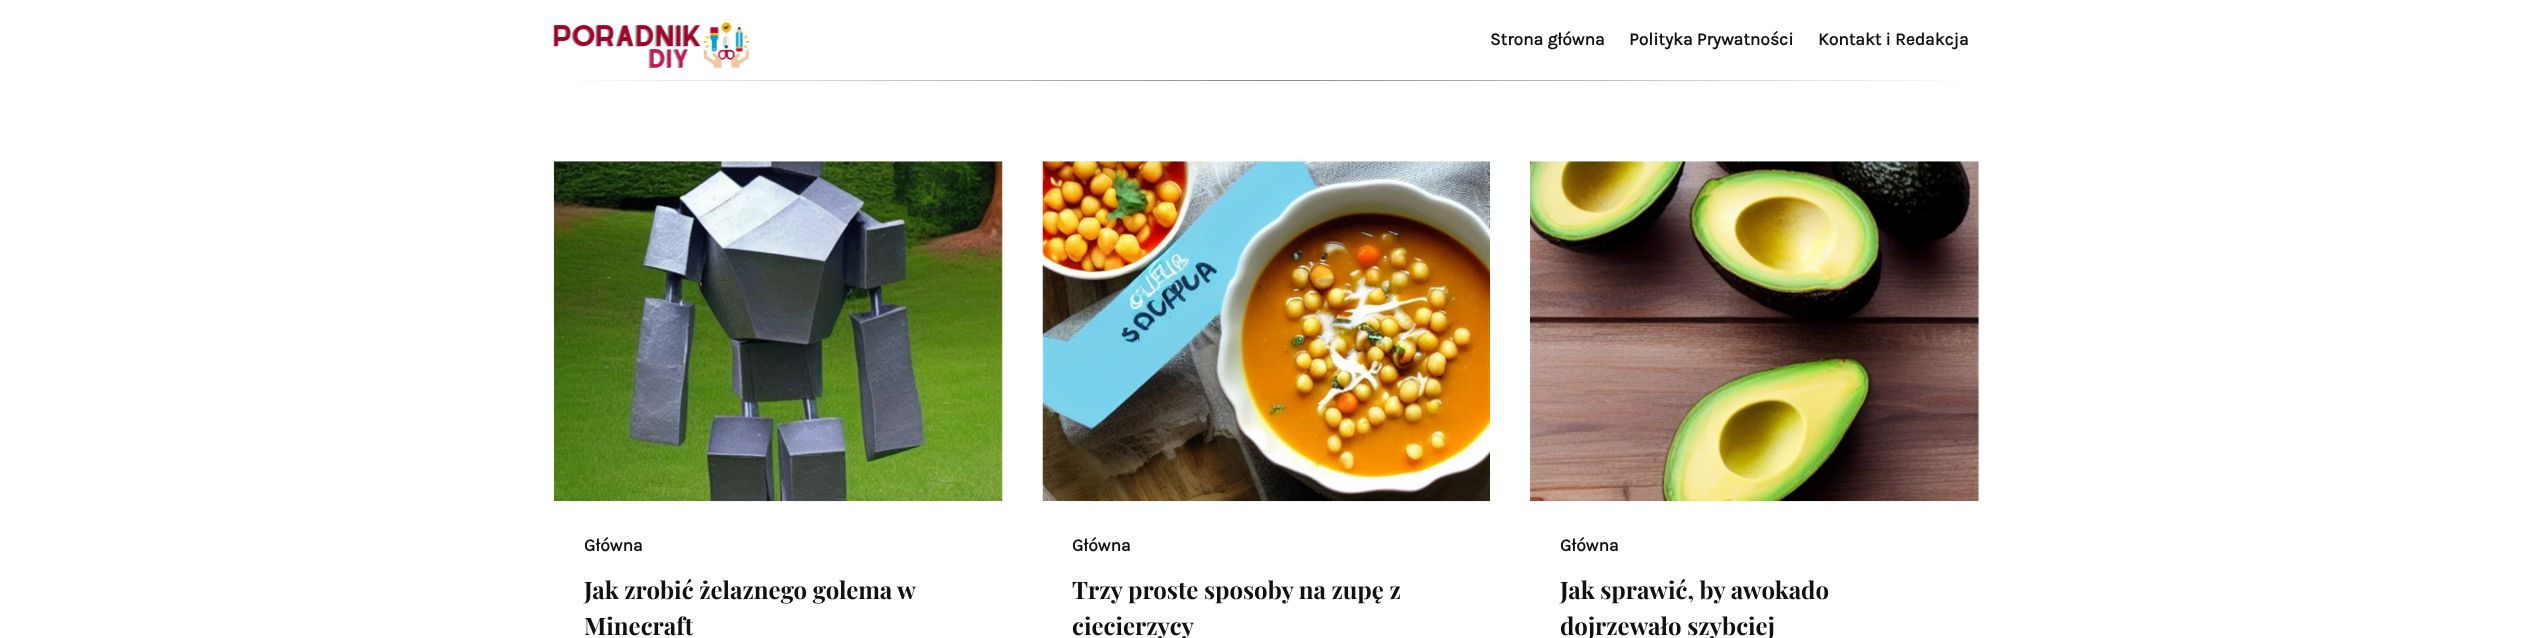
(async () => {
  const canvas = document.querySelector("canvas");
  canvas.width = 2532;
  canvas.height = 638;
  const ctx = canvas.getContext("2d");
  ctx.miterLimit = 4;
  ctx.fontKerning = "normal";
  async function loadImage(src) {
    const img = new Image();
    img.src = src;
    await img.decode();
    return img;
  }
  let gradient;

  ctx.fillStyle = "#ffffff";
  ctx.fillRect(0, 0, 2532, 638);
  ctx.drawImage(await loadImage("img/1.png"), 553, 22, 197, 46);
  gradient = ctx.createRadialGradient(1266, 81, 0, 1266, 81, 713);
  gradient.addColorStop(0, "#888888");
  gradient.addColorStop(1, "#ffffff");
  ctx.fillStyle = gradient;
  ctx.fillRect(569, 80, 1394, 1);
  ctx.drawImage(await loadImage("img/2.png"), 553, 161, 450, 341);
  ctx.drawImage(await loadImage("img/3.png"), 1042, 161, 448, 341);
  ctx.drawImage(await loadImage("img/4.png"), 1530, 161, 449, 341);
  ctx.font = "bold 17.5px Karla";
  ctx.fillStyle = "#111111";
  for (const [text, x, y] of [
    ["Strona główna", 1490, 45],
    ["Polityka Prywatności", 1629, 45],
    ["Kontakt i Redakcja", 1818, 45],
    ["Główna", 584, 551],
  ]) {
    ctx.fillText(text, x, y);
  }
  ctx.font = "bold 24px Playfair Display";
  ctx.fillText("Jak zrobić żelaznego golema w", 584, 599);
  ctx.fillText("Minecraft", 584, 635);
  ctx.font = "bold 17.5px Karla";
  ctx.fillText("Główna", 1072, 551);
  ctx.font = "bold 24px Playfair Display";
  ctx.fillText("Trzy proste sposoby na zupę z", 1072, 599);
  ctx.fillText("ciecierzycy", 1072, 635);
  ctx.font = "bold 17.5px Karla";
  ctx.fillText("Główna", 1560, 551);
  ctx.font = "bold 24px Playfair Display";
  ctx.fillText("Jak sprawić, by awokado", 1560, 599);
  ctx.fillText("dojrzewało szybciej", 1560, 635);
})();
